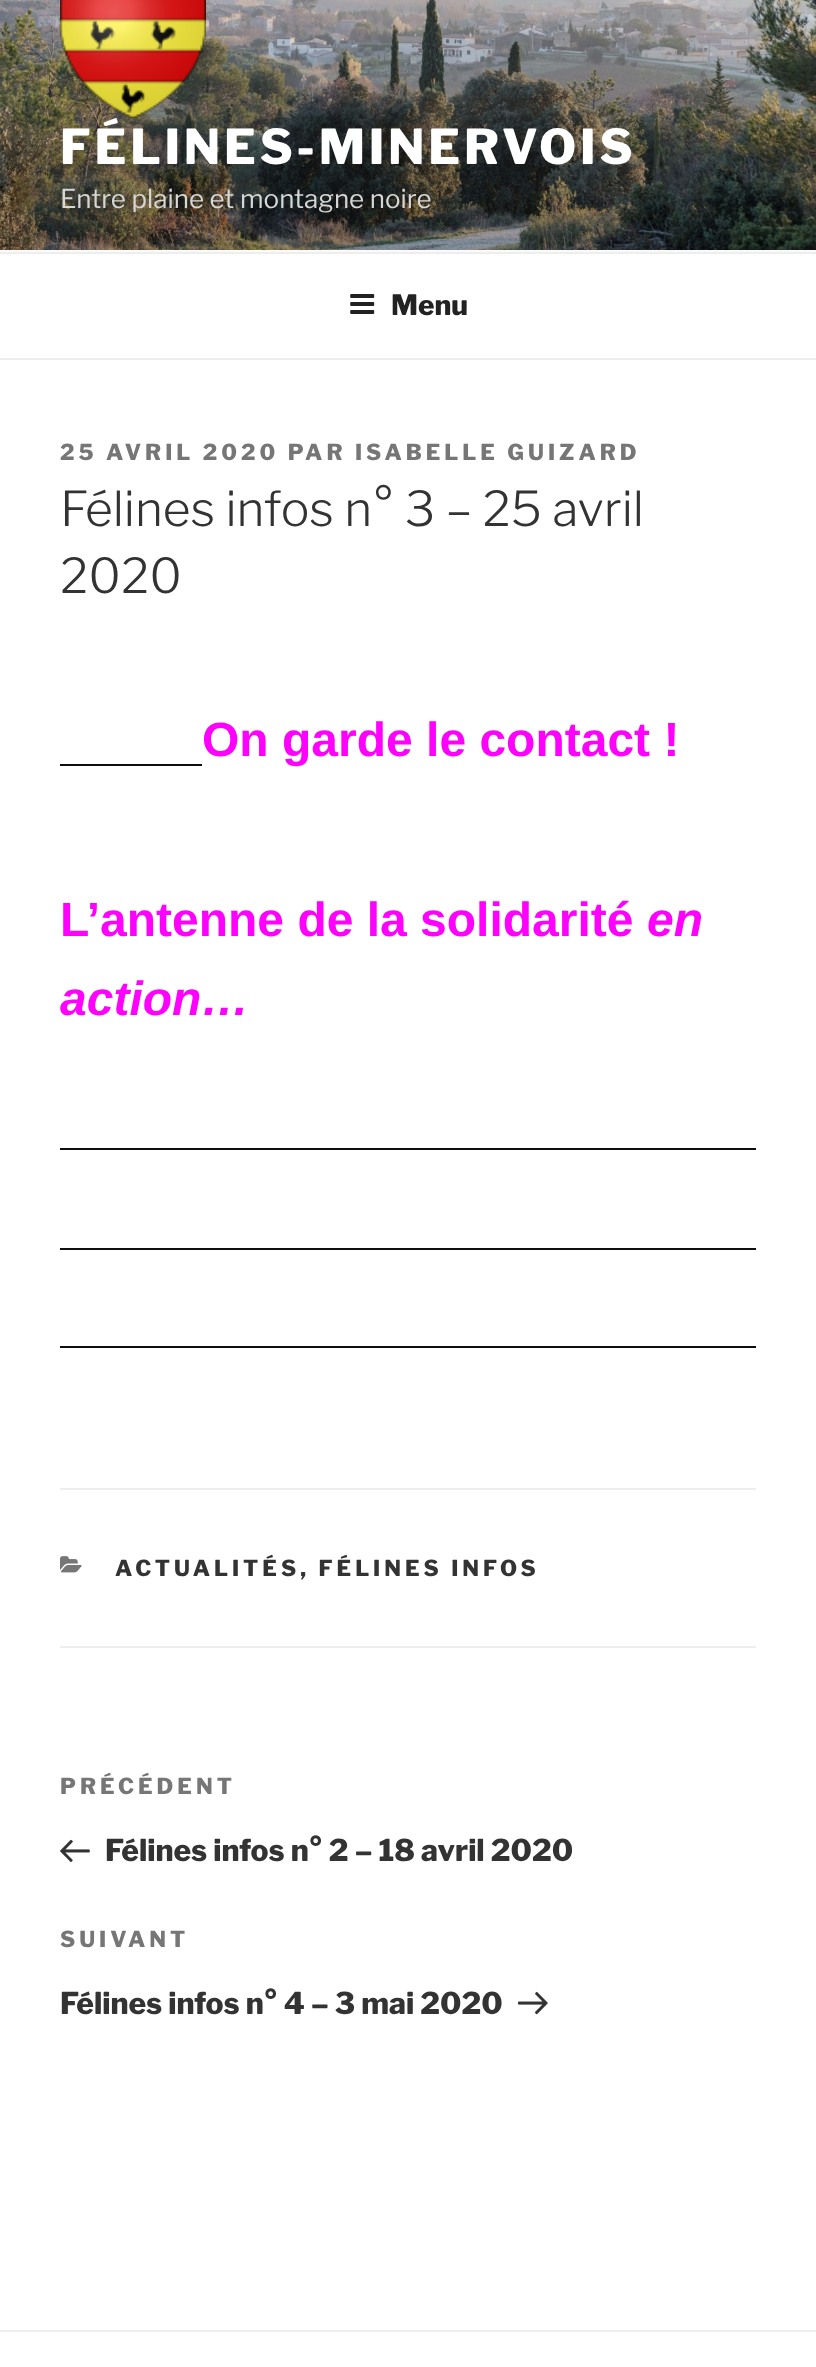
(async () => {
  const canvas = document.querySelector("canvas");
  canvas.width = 816;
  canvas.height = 2367;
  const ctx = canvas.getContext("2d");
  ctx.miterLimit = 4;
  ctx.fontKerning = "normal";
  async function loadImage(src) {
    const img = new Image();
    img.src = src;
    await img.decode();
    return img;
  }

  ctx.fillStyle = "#ffffff";
  ctx.fillRect(0, 0, 816, 2367);
  ctx.fillStyle = "#fafafa";
  ctx.fillRect(0, 250, 816, 2);
  ctx.drawImage(await loadImage("img/1.png"), 0, 0, 816, 250);
  ctx.drawImage(await loadImage("img/2.png"), 60, 0, 146, 118);
  ctx.fillStyle = "#eeeeee";
  ctx.fillRect(0, 252, 816, 2);
  ctx.fillRect(0, 358, 816, 2);
  ctx.drawImage(await loadImage("img/3.png"), 350, 294, 25, 20);
  for (const [x, y, w, h, color] of [
    [60, 764, 142, 2, "#0f0f0f"],
    [60, 1148, 696, 2, "#0f0f0f"],
    [60, 1248, 696, 2, "#0f0f0f"],
    [60, 1346, 696, 2, "#0f0f0f"],
    [60, 1488, 696, 2, "#eeeeee"],
    [60, 1646, 696, 2, "#eeeeee"],
  ]) {
    ctx.fillStyle = color;
    ctx.fillRect(x, y, w, h);
  }
  ctx.drawImage(await loadImage("img/4.png"), 60, 1556, 22, 17);
  ctx.drawImage(await loadImage("img/5.png"), 60, 1839, 30, 24);
  ctx.drawImage(await loadImage("img/6.png"), 518, 1991, 30, 24);
  ctx.fillRect(0, 2330, 816, 2);
  ctx.letterSpacing = "3.8px";
  ctx.font = "100 48px Libre Franklin";
  ctx.fillStyle = "#ffffff";
  ctx.fillText("FÉLINES-MINERVOIS", 60, 164);
  ctx.letterSpacing = "0px";
  ctx.font = "100 26px 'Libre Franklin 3'";
  ctx.fillStyle = "#d6d6d4";
  ctx.fillText("Entre plaine et montagne noire", 60, 208);
  ctx.font = "100 28px Libre Franklin";
  ctx.fillStyle = "#222222";
  ctx.fillText("Menu", 391, 315);
  ctx.letterSpacing = "4px";
  ctx.font = "100 22px Libre Franklin";
  ctx.fillStyle = "#767676";
  ctx.fillText("25 AVRIL 2020 PAR ISABELLE GUIZARD", 60, 460);
  ctx.letterSpacing = "0px";
  ctx.font = "100 48px 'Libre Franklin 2'";
  ctx.fillStyle = "#333333";
  ctx.fillText("Félines infos n° 3 – 25 avril", 60, 526);
  ctx.fillText("2020", 60, 593);
  ctx.font = "bold 48px Liberation Sans";
  ctx.fillStyle = "#ff00ff";
  ctx.fillText("On garde le contact !", 202, 756);
  ctx.fillText("L’antenne de la solidarité", 60, 936);
  ctx.font = "italic bold 48px Liberation Sans";
  ctx.fillText("en", 647, 936);
  ctx.fillText("action…", 60, 1015);
  ctx.letterSpacing = "4px";
  ctx.font = "100 22px Libre Franklin";
  ctx.fillStyle = "#333333";
  ctx.fillText("ACTUALITÉS, FÉLINES INFOS", 115, 1576);
  ctx.fillStyle = "#767676";
  ctx.fillText("PRÉCÉDENT", 60, 1794);
  ctx.letterSpacing = "0px";
  ctx.font = "100 30px Libre Franklin";
  ctx.fillStyle = "#333333";
  ctx.fillText("Félines infos n° 2 – 18 avril 2020", 105, 1861);
  ctx.letterSpacing = "4px";
  ctx.font = "100 22px Libre Franklin";
  ctx.fillStyle = "#767676";
  ctx.fillText("SUIVANT", 60, 1947);
  ctx.letterSpacing = "0px";
  ctx.font = "100 30px Libre Franklin";
  ctx.fillStyle = "#333333";
  ctx.fillText("Félines infos n° 4 – 3 mai 2020", 60, 2014);
})();
